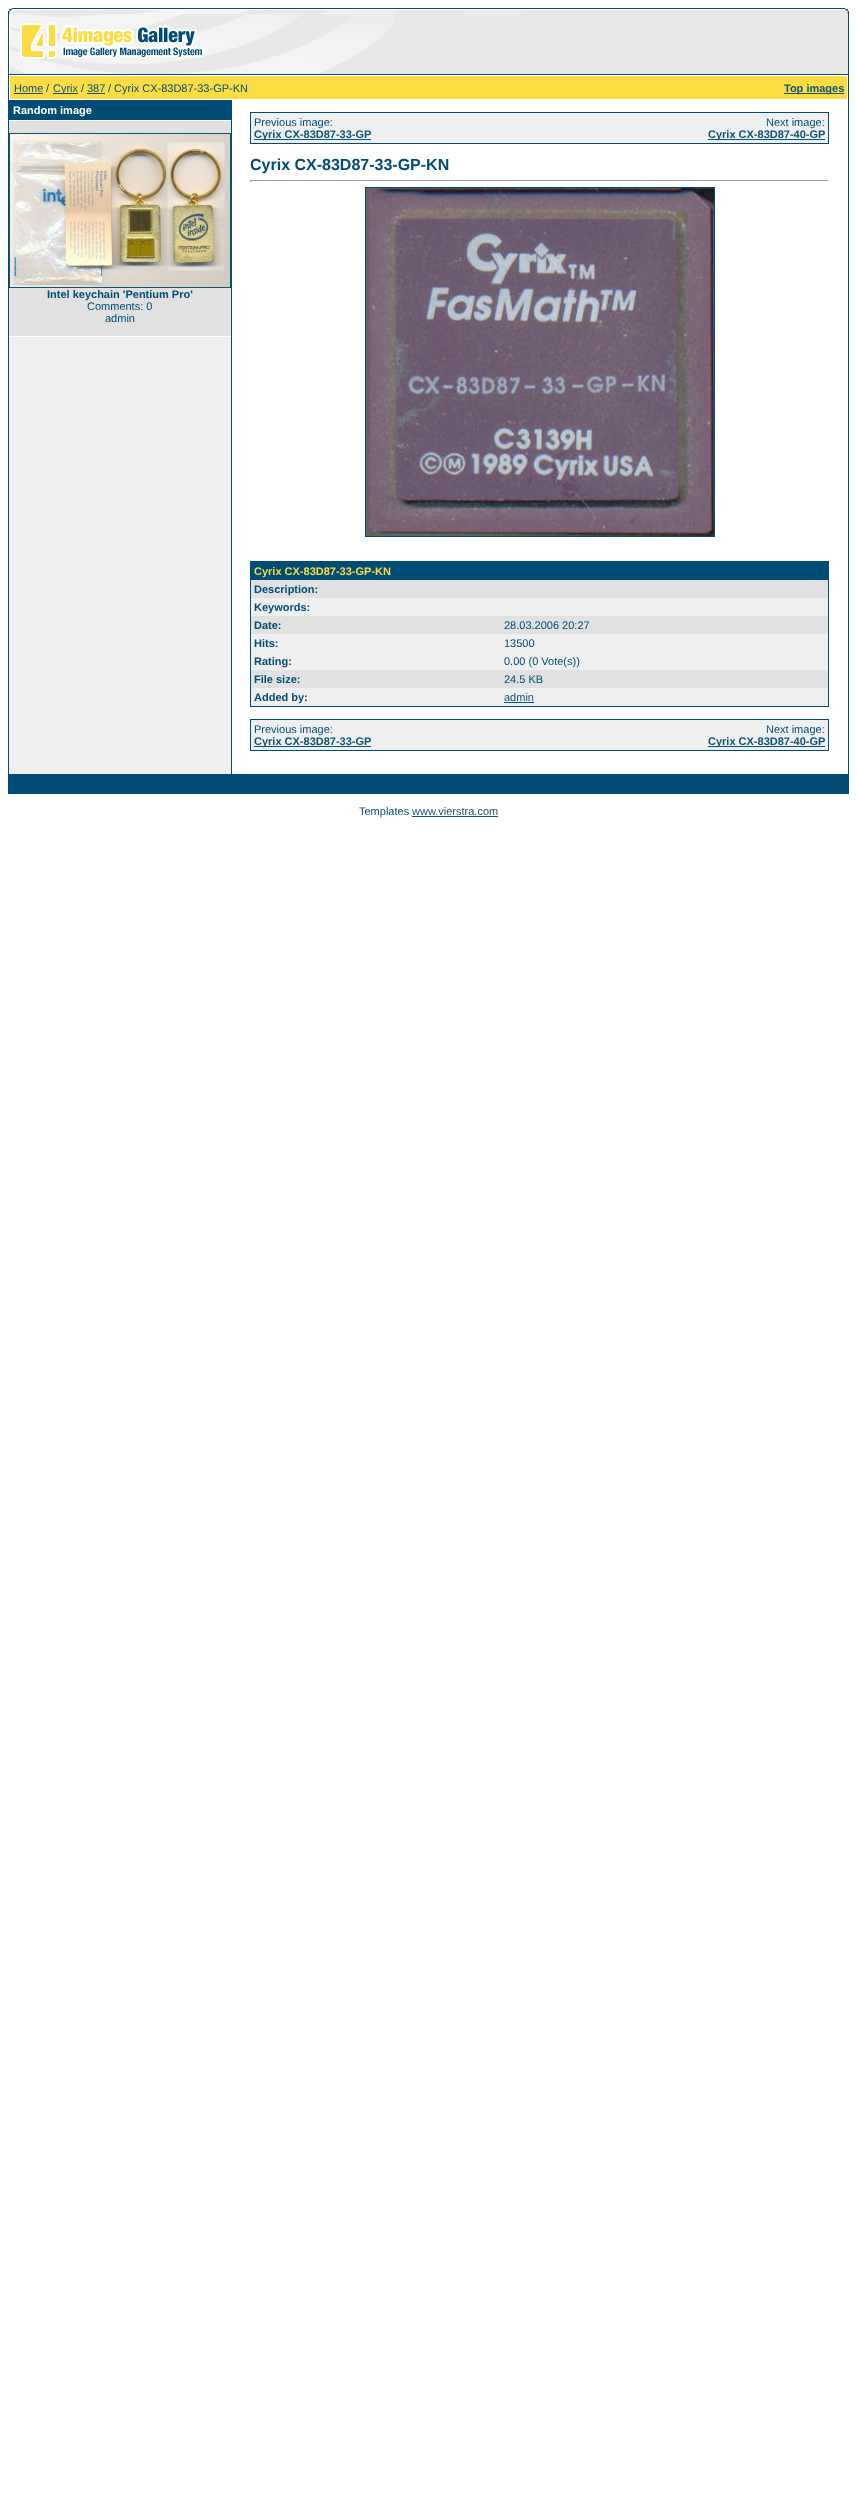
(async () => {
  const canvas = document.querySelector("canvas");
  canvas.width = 857;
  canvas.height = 2493;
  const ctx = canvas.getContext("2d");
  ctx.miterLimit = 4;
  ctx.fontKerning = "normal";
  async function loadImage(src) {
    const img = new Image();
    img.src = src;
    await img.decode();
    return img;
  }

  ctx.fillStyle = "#ffffff";
  ctx.fillRect(0, 0, 857, 2493);
  ctx.fillStyle = "#e8e8e8";
  ctx.fillRect(8, 8, 841, 66);
  ctx.drawImage(await loadImage("img/1.png"), 8, 8, 841, 6);
  ctx.drawImage(await loadImage("img/2.png"), 8, 14, 6, 60);
  ctx.drawImage(await loadImage("img/3.png"), 14, 14, 381, 60);
  for (const [x, y, w, h, color] of [
    [848, 14, 1, 60, "#004c75"],
    [8, 74, 841, 720, "#004c75"],
    [9, 75, 839, 699, "#ffffff"],
    [10, 76, 837, 23, "#fcdc43"],
    [14, 93, 29, 1, "#0f5475"],
    [53, 93, 25, 1, "#0f5475"],
    [87, 93, 18, 1, "#0f5475"],
    [784, 93, 60, 1, "#0f5475"],
    [9, 337, 222, 437, "#efefef"],
    [9, 100, 222, 20, "#004c75"],
    [9, 121, 222, 215, "#e1e1e1"],
  ]) {
    ctx.fillStyle = color;
    ctx.fillRect(x, y, w, h);
  }
  ctx.strokeStyle = "#0f5475";
  ctx.strokeRect(9.5, 133.5, 221, 154);
  ctx.drawImage(await loadImage("img/4.png"), 10, 134, 220, 153);
  for (const [x, y, w, h, color] of [
    [231, 100, 1, 674, "#004c75"],
    [250, 112, 579, 32, "#004c75"],
    [251, 113, 577, 30, "#efefef"],
    [254, 139, 117, 1, "#0f5475"],
    [708, 139, 117, 1, "#0f5475"],
    [250, 180, 579, 1, "#9f9f9f"],
    [828, 180, 1, 2, "#eeeeee"],
    [250, 180, 1, 2, "#9f9f9f"],
  ]) {
    ctx.fillStyle = color;
    ctx.fillRect(x, y, w, h);
  }
  ctx.strokeStyle = "#004c75";
  ctx.strokeRect(365.5, 187.5, 349, 349);
  ctx.drawImage(await loadImage("img/5.png"), 366, 188, 348, 348);
  for (const [x, y, w, h, color] of [
    [250, 561, 579, 146, "#004c75"],
    [251, 580, 577, 18, "#e1e1e1"],
    [251, 598, 577, 18, "#efefef"],
    [251, 616, 577, 18, "#e1e1e1"],
    [251, 634, 577, 18, "#efefef"],
    [251, 652, 577, 18, "#efefef"],
    [251, 670, 577, 18, "#e1e1e1"],
    [251, 688, 577, 18, "#efefef"],
    [504, 702, 30, 1, "#0f5475"],
    [250, 719, 579, 32, "#004c75"],
    [251, 720, 577, 30, "#efefef"],
    [254, 746, 117, 1, "#0f5475"],
    [708, 746, 117, 1, "#0f5475"],
    [412, 816, 86, 1, "#0f5475"],
  ]) {
    ctx.fillStyle = color;
    ctx.fillRect(x, y, w, h);
  }
  ctx.font = "11px Liberation Sans";
  ctx.fillText("Home", 14, 92);
  ctx.fillStyle = "#004c75";
  ctx.fillText("/", 46, 92);
  ctx.fillStyle = "#0f5475";
  ctx.fillText("Cyrix", 53, 92);
  ctx.fillStyle = "#004c75";
  ctx.fillText("/", 81, 92);
  ctx.fillStyle = "#0f5475";
  ctx.fillText("387", 87, 92);
  ctx.fillStyle = "#004c75";
  ctx.fillText("/ Cyrix CX-83D87-33-GP-KN", 108, 92);
  ctx.font = "bold 11px Liberation Sans";
  ctx.fillStyle = "#0f5475";
  ctx.fillText("Top images", 784, 92);
  ctx.fillStyle = "#ffffff";
  ctx.fillText("Random image", 13, 114);
  ctx.fillStyle = "#004c75";
  ctx.fillText("Intel keychain 'Pentium Pro'", 47, 298);
  ctx.font = "11px Liberation Sans";
  for (const [text, x, y] of [
    ["Comments: 0", 87, 310],
    ["admin", 105, 322],
    ["Previous image:", 254, 126],
  ]) {
    ctx.fillText(text, x, y);
  }
  ctx.font = "bold 11px Liberation Sans";
  ctx.fillStyle = "#0f5475";
  ctx.fillText("Cyrix CX-83D87-33-GP", 254, 138);
  ctx.font = "11px Liberation Sans";
  ctx.fillStyle = "#004c75";
  ctx.fillText("Next image:", 766, 126);
  ctx.font = "bold 11px Liberation Sans";
  ctx.fillStyle = "#0f5475";
  ctx.fillText("Cyrix CX-83D87-40-GP", 708, 138);
  ctx.font = "bold 16px Liberation Sans";
  ctx.fillStyle = "#004c75";
  ctx.fillText("Cyrix CX-83D87-33-GP-KN", 250, 170);
  ctx.font = "bold 11px Liberation Sans";
  ctx.fillStyle = "#fcdc43";
  ctx.fillText("Cyrix CX-83D87-33-GP-KN", 254, 575);
  ctx.fillStyle = "#004c75";
  for (const [text, x, y] of [
    ["Description:", 254, 593],
    ["Keywords:", 254, 611],
    ["Date:", 254, 629],
  ]) {
    ctx.fillText(text, x, y);
  }
  ctx.font = "11px Liberation Sans";
  ctx.fillText("28.03.2006 20:27", 504, 629);
  ctx.font = "bold 11px Liberation Sans";
  ctx.fillText("Hits:", 254, 647);
  ctx.font = "11px Liberation Sans";
  ctx.fillText("13500", 504, 647);
  ctx.font = "bold 11px Liberation Sans";
  ctx.fillText("Rating:", 254, 665);
  ctx.font = "11px Liberation Sans";
  ctx.fillText("0.00 (0 Vote(s))", 504, 665);
  ctx.font = "bold 11px Liberation Sans";
  ctx.fillText("File size:", 254, 683);
  ctx.font = "11px Liberation Sans";
  ctx.fillText("24.5 KB", 504, 683);
  ctx.font = "bold 11px Liberation Sans";
  ctx.fillText("Added by:", 254, 701);
  ctx.font = "11px Liberation Sans";
  ctx.fillStyle = "#0f5475";
  ctx.fillText("admin", 504, 701);
  ctx.fillStyle = "#004c75";
  ctx.fillText("Previous image:", 254, 733);
  ctx.font = "bold 11px Liberation Sans";
  ctx.fillStyle = "#0f5475";
  ctx.fillText("Cyrix CX-83D87-33-GP", 254, 745);
  ctx.font = "11px Liberation Sans";
  ctx.fillStyle = "#004c75";
  ctx.fillText("Next image:", 766, 733);
  ctx.font = "bold 11px Liberation Sans";
  ctx.fillStyle = "#0f5475";
  ctx.fillText("Cyrix CX-83D87-40-GP", 708, 745);
  ctx.font = "11px Liberation Sans";
  ctx.fillStyle = "#004c75";
  ctx.fillText("Templates", 359, 815);
  ctx.fillStyle = "#0f5475";
  ctx.fillText("www.vierstra.com", 412, 815);
})();
